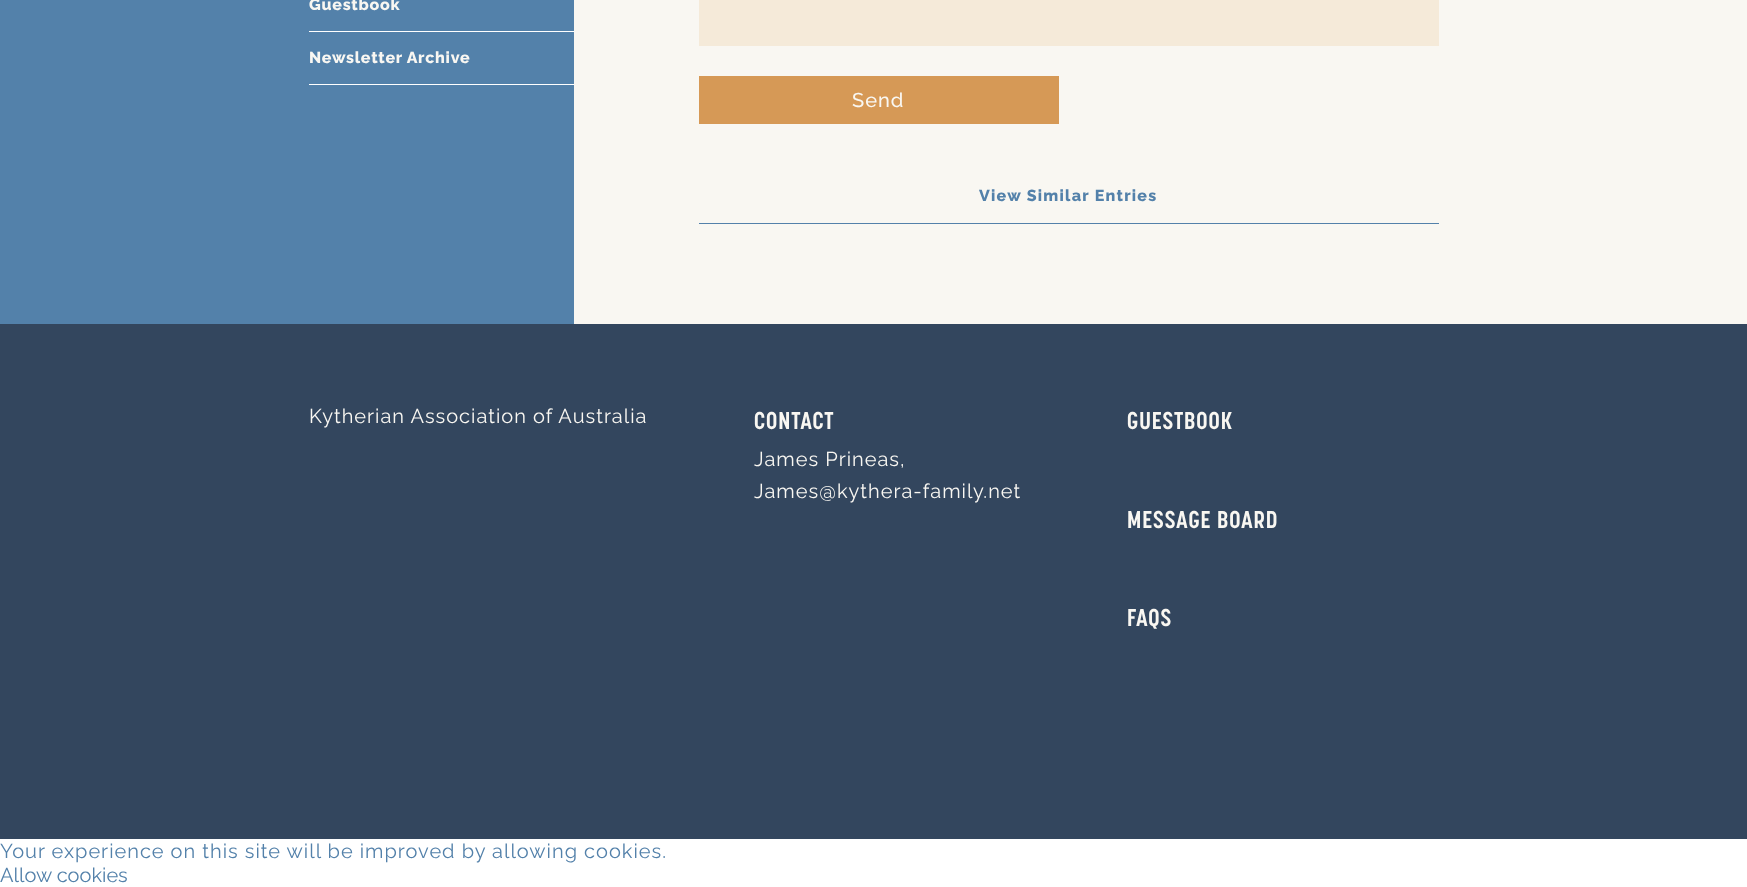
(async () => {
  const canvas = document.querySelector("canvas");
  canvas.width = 1747;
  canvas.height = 887;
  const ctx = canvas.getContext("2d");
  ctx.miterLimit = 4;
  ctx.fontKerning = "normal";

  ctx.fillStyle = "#ffffff";
  ctx.fillRect(0, 0, 1747, 887);
  for (const [x, y, w, h, color] of [
    [574, 0, 1173, 324, "#f9f7f2"],
    [0, 0, 574, 324, "#5381aa"],
    [309, 31, 265, 1, "#ffffff"],
    [309, 84, 265, 1, "#ffffff"],
    [699, 0, 740, 46, "#f5ead9"],
    [699, 76, 360, 48, "#d69956"],
    [699, 223, 740, 1, "#5381aa"],
    [0, 324, 1747, 515, "#33465e"],
  ]) {
    ctx.fillStyle = color;
    ctx.fillRect(x, y, w, h);
  }
  ctx.letterSpacing = "0.75px";
  ctx.font = "800 16px Raleway";
  ctx.fillStyle = "#f9f7f2";
  ctx.fillText("Guestbook", 309, 10);
  ctx.fillText("Newsletter Archive", 309, 63);
  ctx.letterSpacing = "1px";
  ctx.font = "500 20px Raleway";
  ctx.fillText("Send", 852, 107);
  ctx.letterSpacing = "1.25px";
  ctx.font = "800 16px Raleway";
  ctx.fillStyle = "#5381aa";
  ctx.fillText("View Similar Entries", 979, 201);
  ctx.letterSpacing = "1px";
  ctx.font = "20px Raleway";
  ctx.fillStyle = "#f9f7f2";
  ctx.fillText("Kytherian Association of Australia", 309, 423);
  ctx.font = "bold 24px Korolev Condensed";
  ctx.fillText("CONTACT", 754, 429);
  ctx.font = "20px Raleway";
  ctx.fillText("James Prineas,", 754, 466);
  ctx.fillText("James@kythera-family.net", 754, 498);
  ctx.font = "bold 24px Korolev Condensed";
  for (const [text, x, y] of [
    ["GUESTBOOK", 1127, 429],
    ["MESSAGE BOARD", 1127, 528],
    ["FAQS", 1127, 626],
  ]) {
    ctx.fillText(text, x, y);
  }
  ctx.font = "20px Raleway";
  ctx.fillStyle = "#5381aa";
  ctx.fillText("Your experience on this site will be improved by allowing cookies.", 0, 858);
  ctx.letterSpacing = "0px";
  ctx.fillText("Allow cookies", 0, 882);
})();
